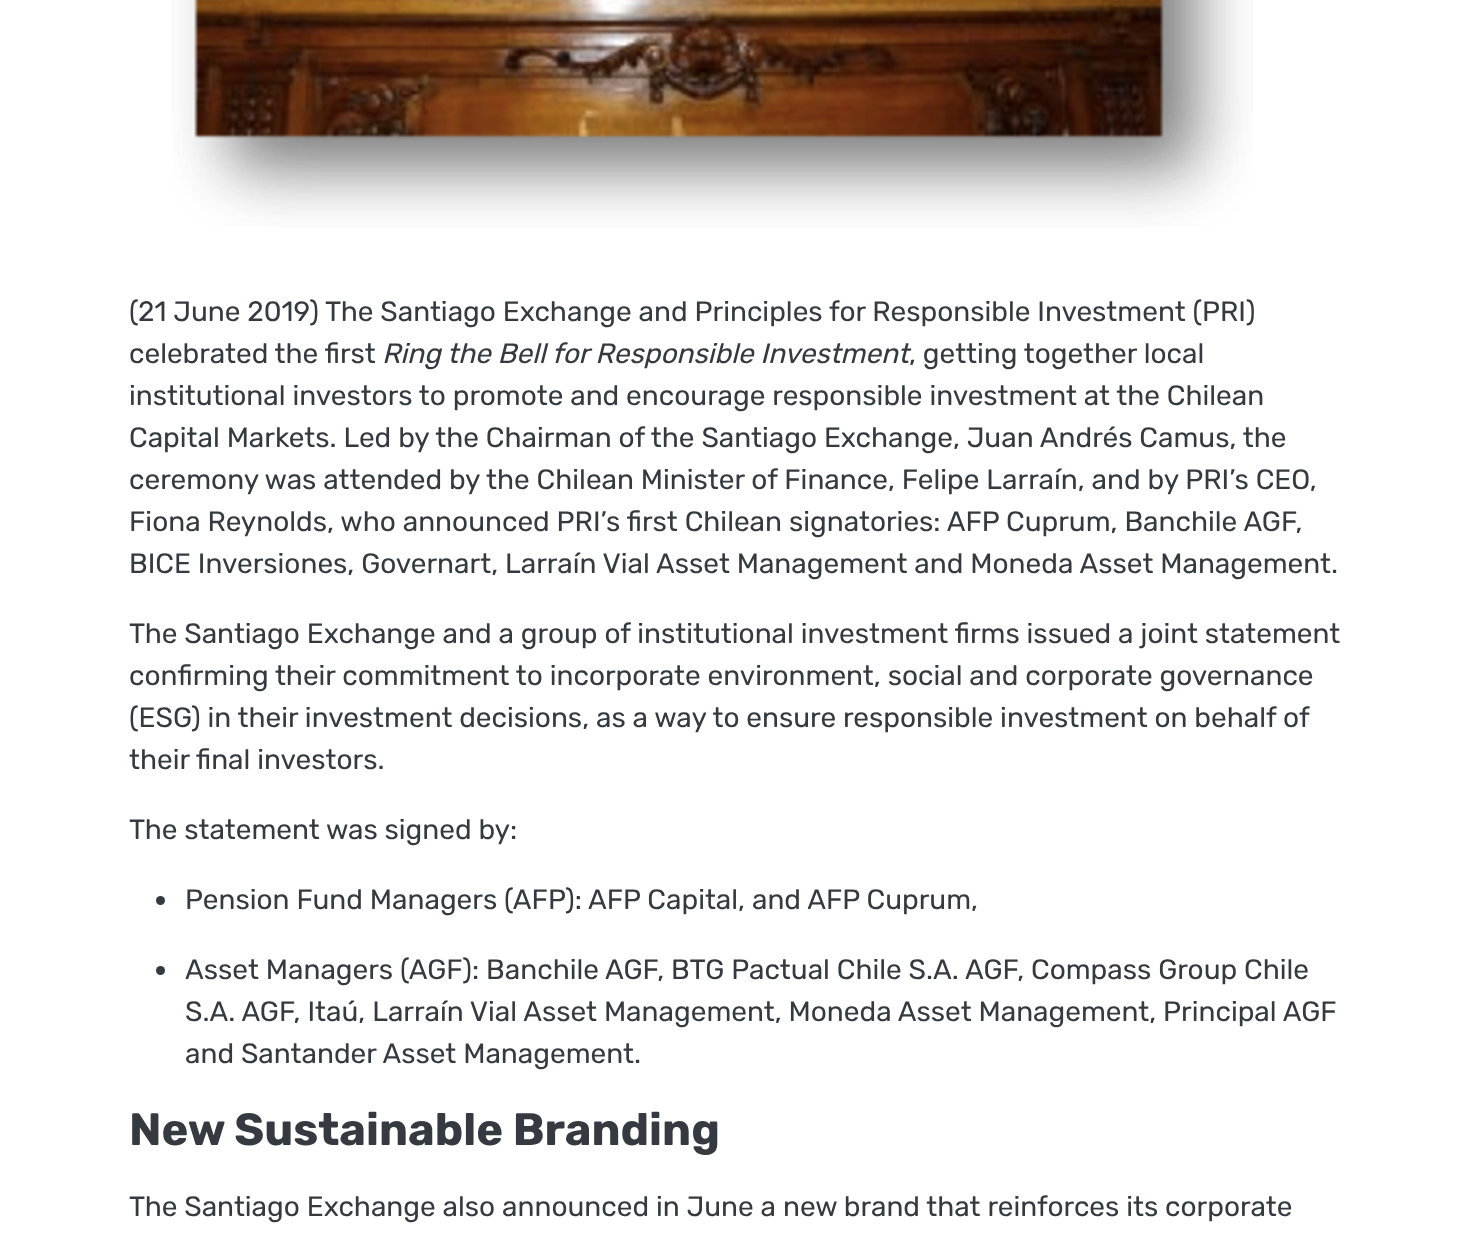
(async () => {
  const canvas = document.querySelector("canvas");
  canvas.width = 1474;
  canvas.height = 1236;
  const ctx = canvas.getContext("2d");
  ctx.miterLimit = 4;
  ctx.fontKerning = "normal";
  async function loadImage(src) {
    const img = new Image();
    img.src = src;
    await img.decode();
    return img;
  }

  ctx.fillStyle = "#ffffff";
  ctx.fillRect(0, 0, 1474, 1236);
  ctx.drawImage(await loadImage("img/1.png"), 172, 0, 1081, 227);
  ctx.fillStyle = "#343a40";
  ctx.beginPath();
  ctx.arc(160.5, 900.5, 4.5, 0, Math.PI * 2);
  ctx.fill();
  ctx.beginPath();
  ctx.arc(160.5, 970.5, 4.5, 0, Math.PI * 2);
  ctx.fill();
  ctx.font = "300 28px Rubik";
  ctx.fillText("(21 June 2019) The Santiago Exchange and Principles for Responsible Investment (PRI)", 129, 321);
  ctx.fillText("celebrated the first", 129, 363);
  ctx.font = "italic 300 28px Rubik";
  ctx.fillText("Ring the Bell for Responsible Investment", 382, 363);
  ctx.font = "300 28px Rubik";
  for (const [text, x, y] of [
    [", getting together local", 909, 363],
    ["institutional investors to promote and encourage responsible investment at the Chilean", 129, 405],
    ["Capital Markets. Led by the Chairman of the Santiago Exchange, Juan Andrés Camus, the", 129, 447],
    ["ceremony was attended by the Chilean Minister of Finance, Felipe Larraín, and by PRI’s CEO,", 129, 489],
    ["Fiona Reynolds, who announced PRI’s first Chilean signatories: AFP Cuprum, Banchile AGF,", 129, 531],
    ["BICE Inversiones, Governart, Larraín Vial Asset Management and Moneda Asset Management.", 129, 573],
    ["The Santiago Exchange and a group of institutional investment firms issued a joint statement", 129, 643],
    ["confirming their commitment to incorporate environment, social and corporate governance", 129, 685],
    ["(ESG) in their investment decisions, as a way to ensure responsible investment on behalf of", 129, 727],
    ["their final investors.", 129, 769],
    ["The statement was signed by:", 129, 839],
    ["Pension Fund Managers (AFP): AFP Capital, and AFP Cuprum,", 185, 909],
    ["Asset Managers (AGF): Banchile AGF, BTG Pactual Chile S.A. AGF, Compass Group Chile", 185, 979],
    ["S.A. AGF, Itaú, Larraín Vial Asset Management, Moneda Asset Management, Principal AGF", 185, 1021],
    ["and Santander Asset Management.", 185, 1063],
  ]) {
    ctx.fillText(text, x, y);
  }
  ctx.font = "300 45.25px 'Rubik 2'";
  ctx.fillText("New Sustainable Branding", 129, 1145);
  ctx.font = "300 28px Rubik";
  ctx.fillText("The Santiago Exchange also announced in June a new brand that reinforces its corporate", 129, 1216);
})();
